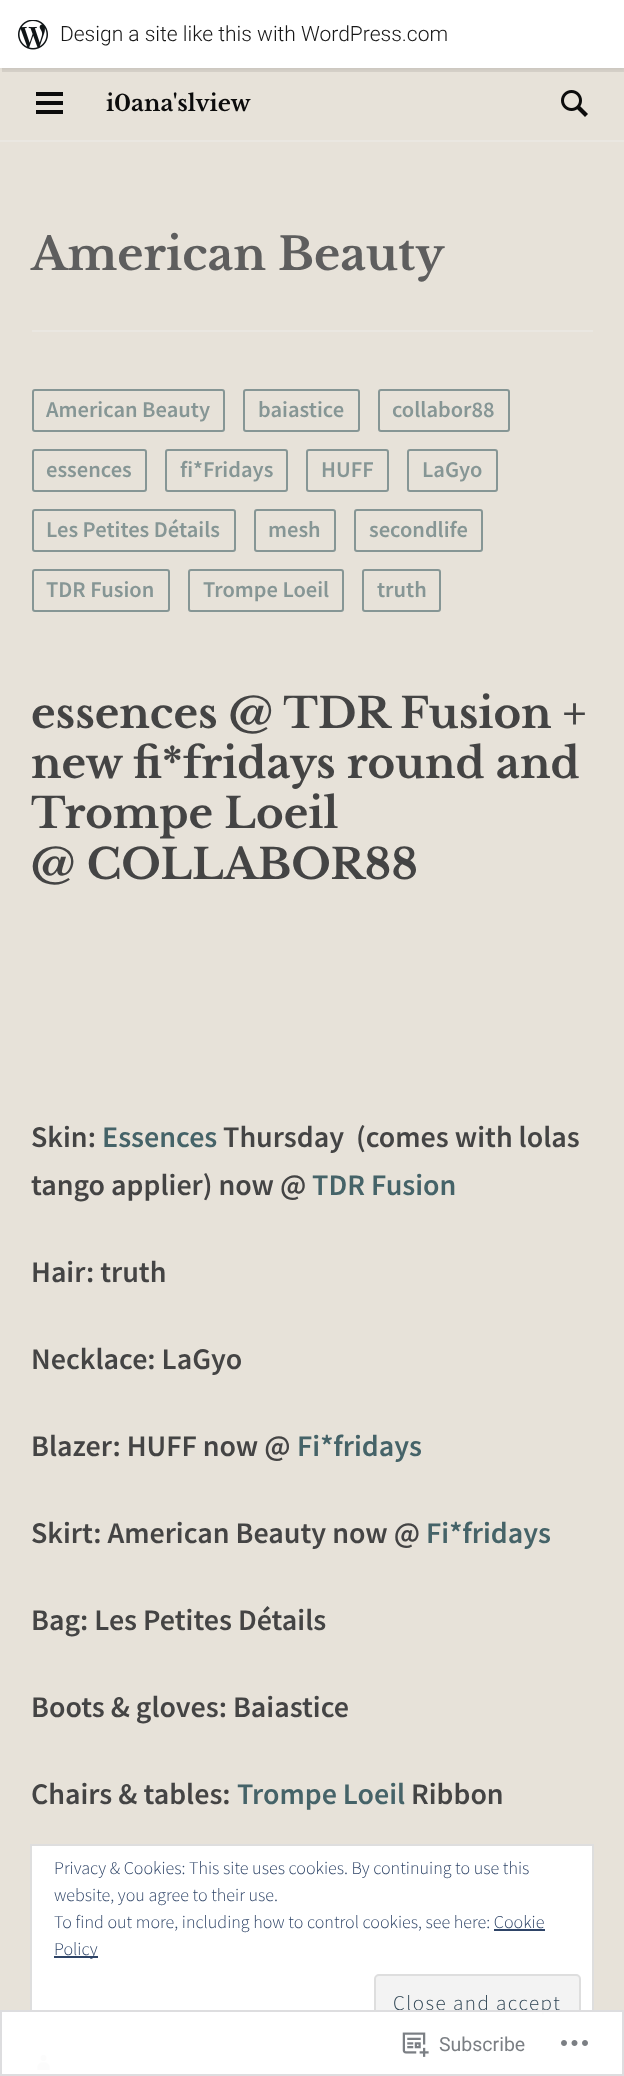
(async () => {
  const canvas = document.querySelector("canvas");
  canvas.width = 624;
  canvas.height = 2076;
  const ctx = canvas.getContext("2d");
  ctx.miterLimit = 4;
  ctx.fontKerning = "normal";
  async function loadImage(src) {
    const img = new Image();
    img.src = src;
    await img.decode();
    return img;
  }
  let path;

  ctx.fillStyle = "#e7e2d9";
  ctx.fillRect(0, 0, 624, 2076);
  ctx.fillStyle = "rgba(0, 0, 0, 0.05)";
  ctx.filter = "blur(1.5px)";
  ctx.beginPath();
  ctx.rect(0, 2, 624, 67);
  ctx.fill();
  ctx.filter = "none";
  ctx.fillStyle = "rgba(0, 0, 0, 0.08)";
  path = new Path2D("M2 68V72H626V5H624V68Z");
  ctx.fill(path);
  ctx.fillStyle = "#ffffff";
  ctx.fillRect(0, 0, 624, 68);
  ctx.drawImage(await loadImage("img/1.png"), 18, 20, 30, 30);
  for (const [x, y, w, h, color] of [
    [0, 140, 624, 2, "#eae7e1"],
    [36, 92, 27, 4, "#0c0c0c"],
    [36, 101, 27, 4, "#0c0c0c"],
    [36, 110, 27, 4, "#0c0c0c"],
  ]) {
    ctx.fillStyle = color;
    ctx.fillRect(x, y, w, h);
  }
  ctx.drawImage(await loadImage("img/2.png"), 561, 90, 27, 27);
  ctx.fillStyle = "#eae7e1";
  ctx.fillRect(32, 330, 561, 2);
  ctx.beginPath();
  ctx.roundRect(33, 390, 191, 41, 2);
  ctx.strokeStyle = "#869695";
  ctx.lineWidth = 2;
  ctx.stroke();
  ctx.beginPath();
  ctx.roundRect(244, 390, 115, 41, 2);
  ctx.stroke();
  ctx.beginPath();
  ctx.roundRect(379, 390, 130, 41, 2);
  ctx.stroke();
  ctx.beginPath();
  ctx.roundRect(33, 450, 113, 41, 2);
  ctx.stroke();
  ctx.beginPath();
  ctx.roundRect(166, 450, 121, 41, 2);
  ctx.stroke();
  ctx.beginPath();
  ctx.roundRect(307, 450, 81, 41, 2);
  ctx.stroke();
  ctx.beginPath();
  ctx.roundRect(408, 450, 89, 41, 2);
  ctx.stroke();
  ctx.beginPath();
  ctx.roundRect(33, 510, 202, 41, 2);
  ctx.stroke();
  ctx.beginPath();
  ctx.roundRect(255, 510, 80, 41, 2);
  ctx.stroke();
  ctx.beginPath();
  ctx.roundRect(355, 510, 127, 41, 2);
  ctx.stroke();
  ctx.beginPath();
  ctx.roundRect(33, 570, 136, 41, 2);
  ctx.stroke();
  ctx.beginPath();
  ctx.roundRect(189, 570, 154, 41, 2);
  ctx.stroke();
  ctx.beginPath();
  ctx.roundRect(363, 570, 77, 41, 2);
  ctx.stroke();
  ctx.drawImage(await loadImage("img/3.png"), 37, 2055, 13, 15);
  ctx.fillStyle = "#ffffff";
  ctx.beginPath();
  ctx.rect(31, 1845, 562, 200);
  ctx.fill();
  ctx.strokeStyle = "#dedede";
  ctx.stroke();
  ctx.fillStyle = "#2e4467";
  ctx.fillRect(494, 1929, 51, 2);
  ctx.fillRect(54, 1956, 44, 2);
  ctx.fillStyle = "#f3f3f3";
  ctx.beginPath();
  ctx.roundRect(375, 1975, 205, 57, 4);
  ctx.fill();
  ctx.stroke();
  ctx.font = "300 21px Roboto";
  ctx.fillStyle = "#171717";
  ctx.fillText("Design a site like this with WordPress.com", 60, 41);
  ctx.font = "bold 22.5px Libre Baskerville";
  ctx.fillStyle = "#0c0c0c";
  ctx.fillText("i0ana'slview", 106, 111);
  ctx.font = "bold 45px Libre Baskerville";
  ctx.fillStyle = "#5e5e5e";
  ctx.fillText("American Beauty", 31, 270);
  ctx.font = "600 22.5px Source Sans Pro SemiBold";
  ctx.fillStyle = "#869695";
  for (const [text, x, y] of [
    ["American Beauty", 46, 417],
    ["baiastice", 258, 417],
    ["collabor88", 392, 417],
    ["essences", 46, 477],
    ["fi*Fridays", 180, 477],
    ["HUFF", 321, 477],
    ["LaGyo", 422, 477],
    ["Les Petites Détails", 46, 537],
    ["mesh", 268, 537],
    ["secondlife", 369, 537],
    ["TDR Fusion", 46, 597],
    ["Trompe Loeil", 203, 597],
    ["truth", 377, 597],
  ]) {
    ctx.fillText(text, x, y);
  }
  ctx.font = "bold 42px Libre Baskerville";
  ctx.fillStyle = "#444444";
  for (const [text, x, y] of [
    ["essences @ TDR Fusion +", 31, 728],
    ["new fi*fridays round and", 31, 778],
    ["Trompe Loeil", 31, 828],
    ["@ COLLABOR88", 31, 879],
  ]) {
    ctx.fillText(text, x, y);
  }
  ctx.font = "600 30px Source Sans Pro SemiBold";
  ctx.fillText("Skin:", 31, 1147);
  ctx.fillStyle = "#456368";
  ctx.fillText("Essences", 102, 1147);
  ctx.fillStyle = "#444444";
  ctx.fillText("Thursday  (comes with lolas", 223, 1147);
  ctx.fillText("tango applier) now @", 31, 1195);
  ctx.fillStyle = "#456368";
  ctx.fillText("TDR Fusion", 312, 1195);
  ctx.fillStyle = "#444444";
  for (const [text, x, y] of [
    ["Hair: truth", 31, 1282],
    ["Necklace: LaGyo", 31, 1369],
    ["Blazer: HUFF now @", 31, 1456],
  ]) {
    ctx.fillText(text, x, y);
  }
  ctx.fillStyle = "#456368";
  ctx.fillText("Fi*fridays", 297, 1456);
  ctx.fillStyle = "#444444";
  ctx.fillText("Skirt: American Beauty now @", 31, 1543);
  ctx.fillStyle = "#456368";
  ctx.fillText("Fi*fridays", 426, 1543);
  ctx.fillStyle = "#444444";
  for (const [text, x, y] of [
    ["Bag: Les Petites Détails", 31, 1630],
    ["Boots & gloves: Baiastice", 31, 1717],
    ["Chairs & tables:", 31, 1804],
  ]) {
    ctx.fillText(text, x, y);
  }
  ctx.fillStyle = "#456368";
  ctx.fillText("Trompe Loeil", 237, 1804);
  ctx.fillStyle = "#444444";
  ctx.fillText("Ribbon", 411, 1804);
  ctx.font = "300 18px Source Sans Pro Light";
  ctx.fillStyle = "#2e4467";
  for (const [text, x, y] of [
    ["Privacy & Cookies: This site uses cookies. By continuing to use this", 54, 1874],
    ["website, you agree to their use.", 54, 1901],
    ["To find out more, including how to control cookies, see here: Cookie", 54, 1928],
    ["Policy", 54, 1955],
  ]) {
    ctx.fillText(text, x, y);
  }
  ctx.letterSpacing = "1.5px";
  ctx.font = "300 21px Source Sans Pro Light";
  ctx.fillStyle = "#2e4453";
  ctx.fillText("Close and accept", 393, 2010);
  ctx.fillStyle = "rgba(255, 255, 255, 0.98)";
  ctx.fillRect(0, 2010, 624, 66);
  ctx.strokeStyle = "rgba(220, 220, 222, 0.98)";
  ctx.strokeRect(1, 2011, 622, 64);
  ctx.drawImage(await loadImage("img/4.png"), 402, 2032, 27, 25);
  ctx.letterSpacing = "0px";
  ctx.font = "19.5px Roboto";
  ctx.fillStyle = "#7b7f84";
  ctx.fillText("Subscribe", 439, 2051);
  ctx.drawImage(await loadImage("img/5.png"), 561, 2040, 27, 6);
})();
